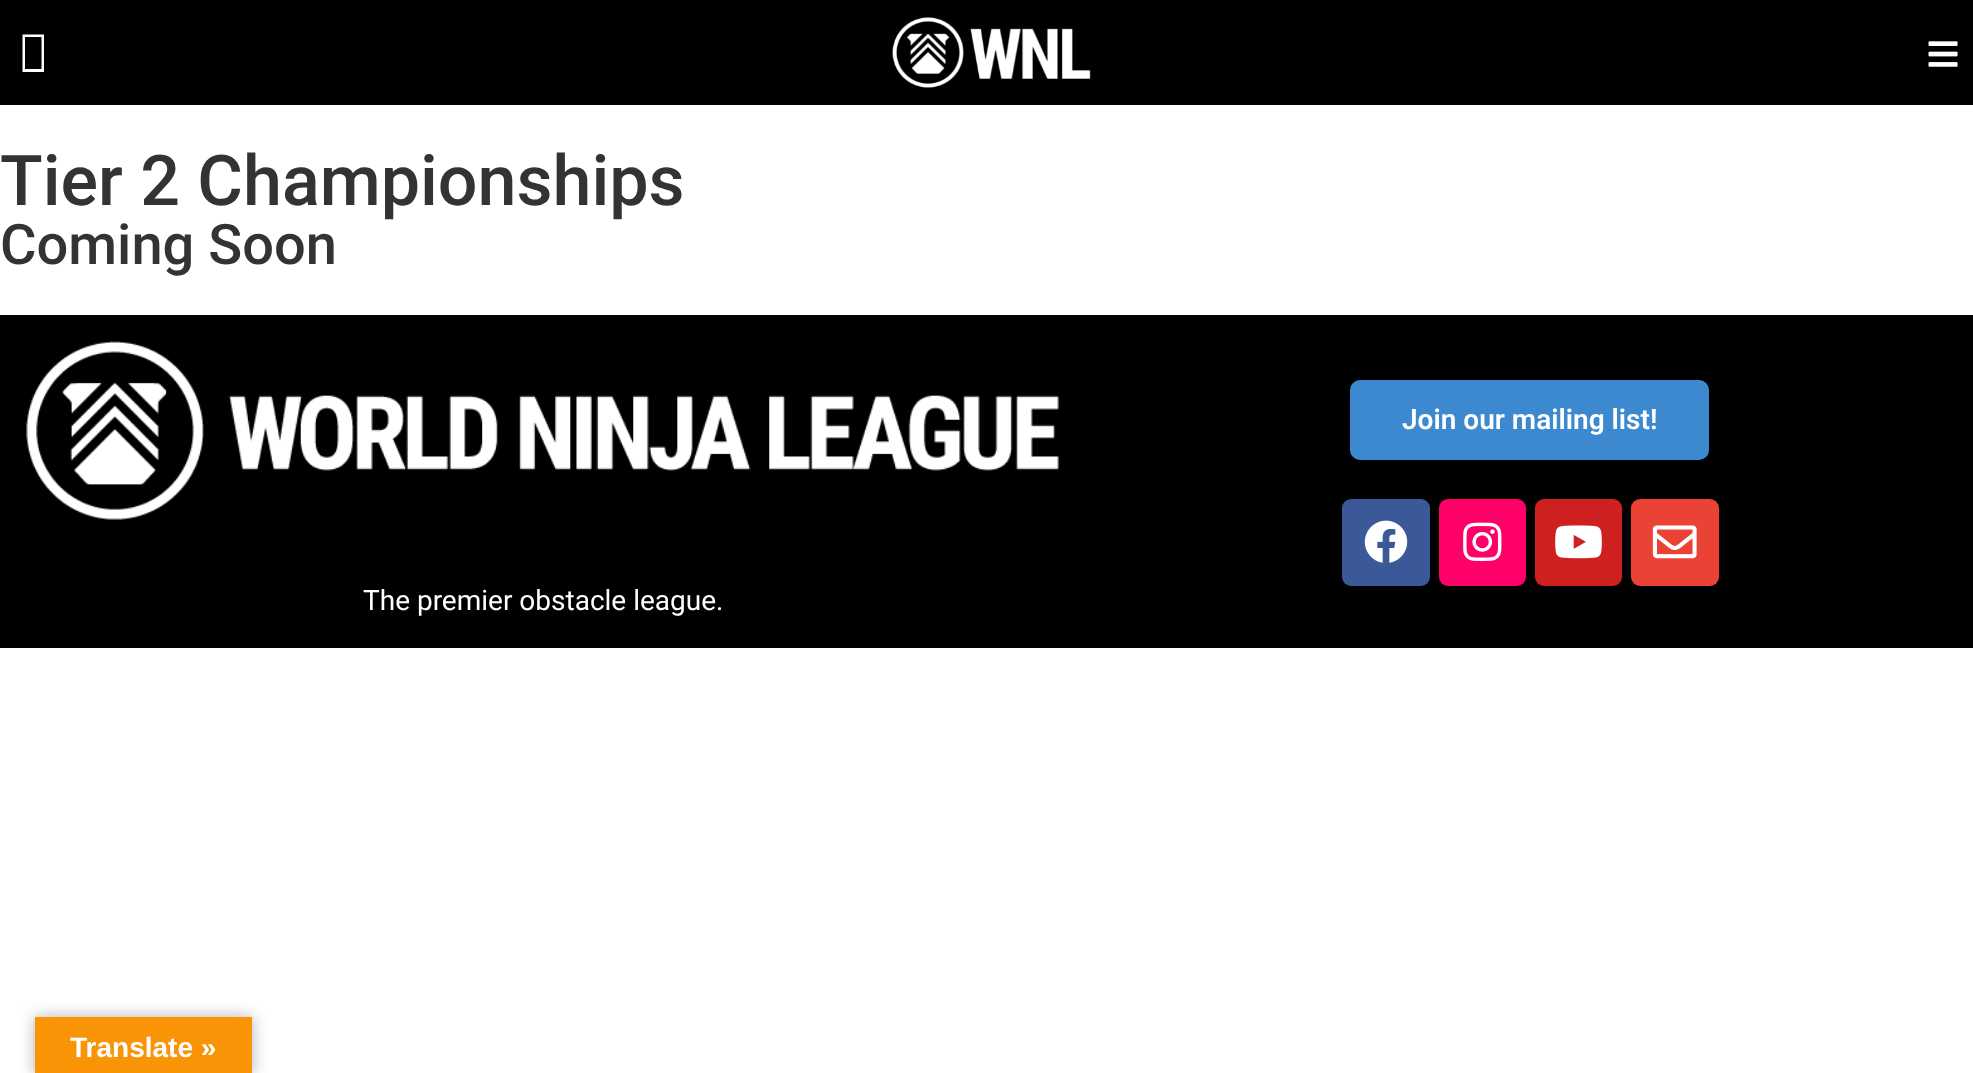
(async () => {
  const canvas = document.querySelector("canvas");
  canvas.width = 1973;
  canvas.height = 1073;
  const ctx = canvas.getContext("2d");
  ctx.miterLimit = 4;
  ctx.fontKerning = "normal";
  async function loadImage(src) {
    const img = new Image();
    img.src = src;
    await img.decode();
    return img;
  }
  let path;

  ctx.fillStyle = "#ffffff";
  ctx.fillRect(0, 0, 1973, 1073);
  ctx.fillStyle = "#000000";
  ctx.fillRect(0, 0, 1973, 105);
  ctx.fillStyle = "#ffffff";
  path = new Path2D("M22.5 72V34.5H44V72ZM25 69H41.5V37H25Z");
  ctx.fill(path);
  ctx.drawImage(await loadImage("img/1.png"), 892, 17, 199, 71);
  ctx.drawImage(await loadImage("img/2.png"), 1928, 41, 30, 26);
  ctx.fillStyle = "#000000";
  ctx.fillRect(0, 315, 1973, 333);
  ctx.fillStyle = "#3d89cf";
  ctx.beginPath();
  ctx.roundRect(1348, 378, 363, 84, 12);
  ctx.fill();
  ctx.strokeStyle = "#000000";
  ctx.lineWidth = 4;
  ctx.stroke();
  ctx.fillStyle = "#3b5998";
  ctx.beginPath();
  ctx.roundRect(1342, 499, 88, 87, 9);
  ctx.fill();
  ctx.drawImage(await loadImage("img/3.png"), 1364, 520, 44, 43);
  ctx.fillStyle = "#ff0069";
  ctx.beginPath();
  ctx.roundRect(1439, 499, 87, 87, 9);
  ctx.fill();
  ctx.drawImage(await loadImage("img/4.png"), 1463, 522, 39, 39);
  ctx.fillStyle = "#cd201f";
  ctx.beginPath();
  ctx.roundRect(1535, 499, 87, 87, 9);
  ctx.fill();
  ctx.drawImage(await loadImage("img/5.png"), 1555, 525, 47, 34);
  ctx.fillStyle = "#ea4335";
  ctx.beginPath();
  ctx.roundRect(1631, 499, 88, 87, 9);
  ctx.fill();
  ctx.drawImage(await loadImage("img/6.png"), 1652, 525, 45, 34);
  ctx.drawImage(await loadImage("img/7.png"), 26, 341, 1033, 179);
  ctx.fillStyle = "rgba(0, 0, 0, 0.3)";
  ctx.filter = "blur(8px)";
  ctx.beginPath();
  ctx.rect(35, 1017, 217, 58);
  ctx.fill();
  ctx.filter = "none";
  ctx.fillStyle = "#f89406";
  ctx.fillRect(35, 1017, 217, 56);
  ctx.font = "500 70px Roboto";
  ctx.fillStyle = "#333333";
  ctx.fillText("Tier 2 Championships", 0, 205);
  ctx.font = "500 56px Roboto";
  ctx.fillText("Coming Soon", 0, 264);
  ctx.font = "600 28px Roboto";
  ctx.fillStyle = "#ffffff";
  ctx.fillText("Join our mailing list!", 1402, 429);
  ctx.font = "28px Roboto";
  ctx.fillText("The premier obstacle league.", 363, 610);
  ctx.font = "bold 28px Liberation Sans";
  ctx.fillText("Translate »", 70, 1057);
})();
